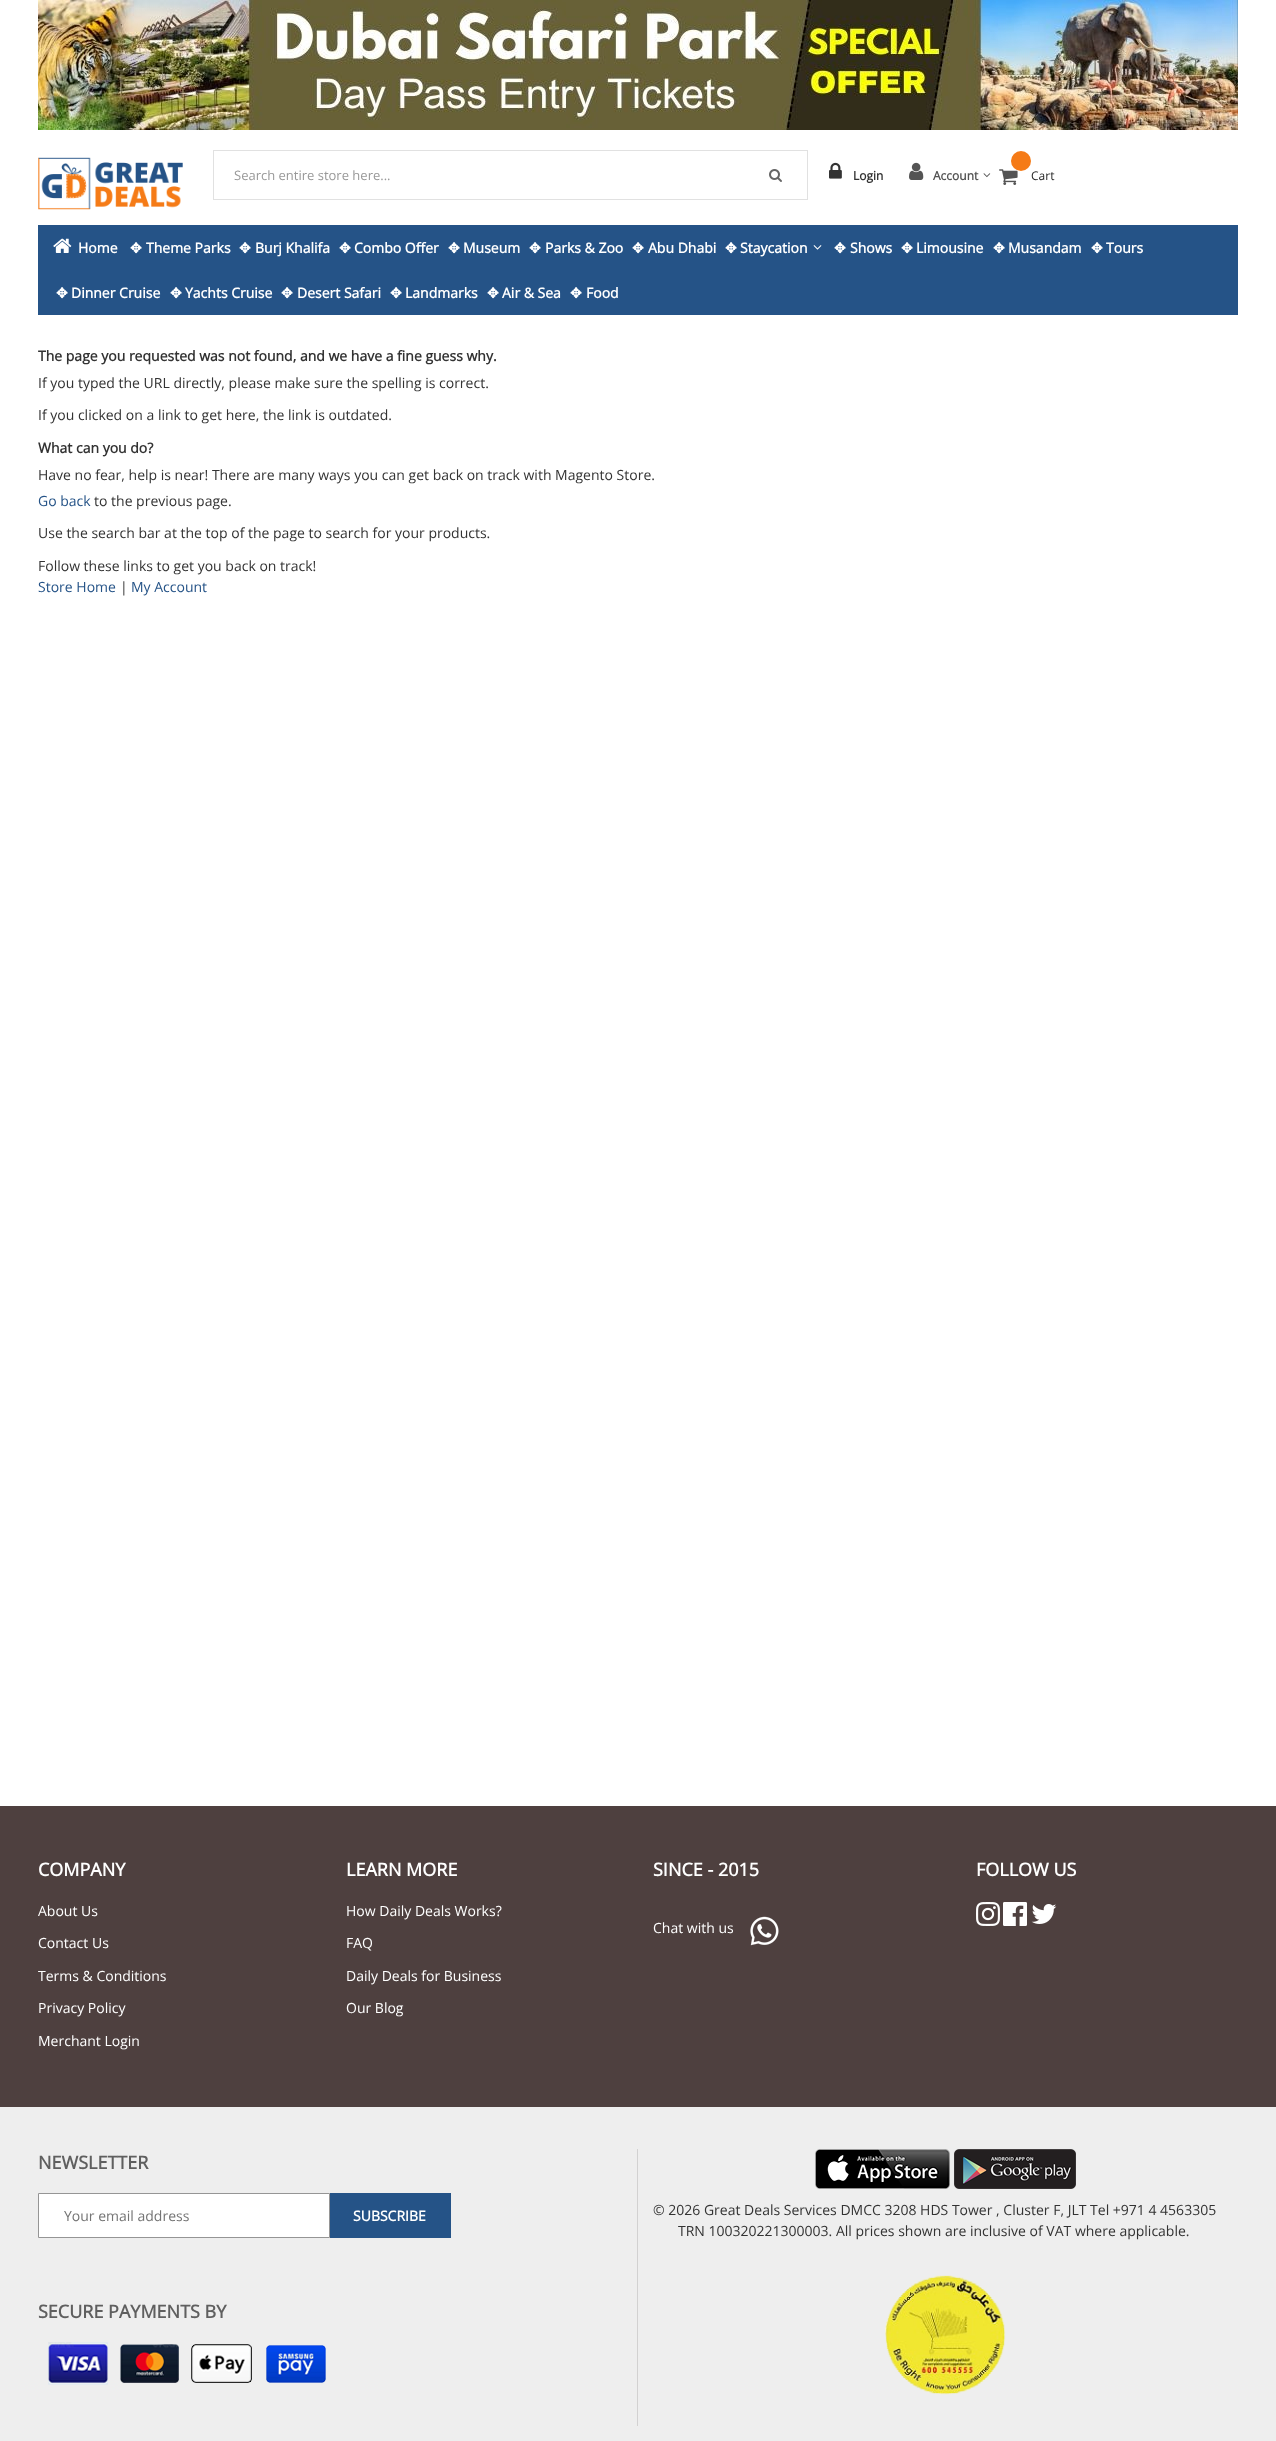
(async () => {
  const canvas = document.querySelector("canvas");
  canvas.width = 1276;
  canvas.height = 2441;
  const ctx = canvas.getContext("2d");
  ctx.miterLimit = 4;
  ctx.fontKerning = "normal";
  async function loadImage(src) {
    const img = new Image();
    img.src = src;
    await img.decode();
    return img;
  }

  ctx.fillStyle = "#ffffff";
  ctx.fillRect(0, 0, 1276, 2441);
  ctx.drawImage(await loadImage("img/1.png"), 38, 0, 1200, 130);
  ctx.drawImage(await loadImage("img/2.png"), 38, 157, 145, 53);
  for (const [x, y, w, h, color] of [
    [213, 150, 1, 50, "#e1e1e1"],
    [214, 150, 594, 1, "#e1e1e1"],
    [807, 150, 1, 50, "#e1e1e1"],
    [214, 199, 594, 1, "#e1e1e1"],
  ]) {
    ctx.fillStyle = color;
    ctx.fillRect(x, y, w, h);
  }
  ctx.drawImage(await loadImage("img/3.png"), 769, 169, 13, 13);
  ctx.drawImage(await loadImage("img/4.png"), 829, 162, 13, 17);
  ctx.drawImage(await loadImage("img/5.png"), 909, 162, 15, 18);
  ctx.drawImage(await loadImage("img/6.png"), 983, 173, 8, 5);
  ctx.drawImage(await loadImage("img/7.png"), 999, 169, 19, 16);
  ctx.fillStyle = "#f57b17";
  ctx.beginPath();
  ctx.arc(1021, 161, 10, 0, Math.PI * 2);
  ctx.fill();
  ctx.fillStyle = "#255387";
  ctx.fillRect(38, 225, 1200, 90);
  ctx.drawImage(await loadImage("img/8.png"), 53, 238, 19, 15);
  ctx.drawImage(await loadImage("img/9.png"), 813, 245, 9, 5);
  ctx.fillStyle = "#eeeeee";
  ctx.fillRect(0, 2107, 1276, 334);
  ctx.fillStyle = "#4e403f";
  ctx.fillRect(0, 1806, 1276, 301);
  ctx.drawImage(await loadImage("img/10.png"), 750, 1916, 29, 30);
  ctx.drawImage(await loadImage("img/11.png"), 976, 1902, 24, 24);
  ctx.drawImage(await loadImage("img/12.png"), 1003, 1902, 24, 24);
  ctx.drawImage(await loadImage("img/13.png"), 1031, 1904, 26, 20);
  ctx.fillStyle = "#d2d1d1";
  ctx.fillRect(637, 2149, 1, 277);
  ctx.fillStyle = "#ffffff";
  ctx.beginPath();
  ctx.rect(38.5, 2193.5, 291, 44);
  ctx.fill();
  ctx.strokeStyle = "#959595";
  ctx.stroke();
  ctx.fillStyle = "#255387";
  ctx.fillRect(330, 2193, 121, 45);
  ctx.drawImage(await loadImage("img/14.png"), 48, 2342, 278, 43);
  ctx.drawImage(await loadImage("img/15.png"), 815, 2149, 135, 40);
  ctx.drawImage(await loadImage("img/16.png"), 954, 2149, 122, 40);
  ctx.drawImage(await loadImage("img/17.png"), 885, 2275, 121, 120);
  ctx.font = "13px Open Sans";
  ctx.fillStyle = "#999999";
  ctx.fillText("Search entire store here...", 234, 180);
  ctx.font = "bold 12px Open Sans";
  ctx.fillStyle = "#333333";
  ctx.fillText("Login", 853, 180);
  ctx.fillStyle = "#545454";
  ctx.fillText("Account", 933, 180);
  ctx.font = "12px Open Sans";
  ctx.fillStyle = "#1f1f1f";
  ctx.fillText("Cart", 1031, 180);
  ctx.font = "bold 14px Open Sans";
  ctx.fillStyle = "#ffffff";
  ctx.fillText("Home", 78, 253);
  ctx.font = "bold 14px DejaVu Sans";
  ctx.fillText("✥", 130, 253);
  ctx.font = "bold 14px Open Sans";
  ctx.fillText("Theme Parks", 146, 253);
  ctx.font = "bold 14px DejaVu Sans";
  ctx.fillText("✥", 239, 253);
  ctx.font = "bold 14px Open Sans";
  ctx.fillText("Burj Khalifa", 255, 253);
  ctx.font = "bold 14px DejaVu Sans";
  ctx.fillText("✥", 339, 253);
  ctx.font = "bold 14px Open Sans";
  ctx.fillText("Combo Offer", 354, 253);
  ctx.font = "bold 14px DejaVu Sans";
  ctx.fillText("✥", 448, 253);
  ctx.font = "bold 14px Open Sans";
  ctx.fillText("Museum", 463, 253);
  ctx.font = "bold 14px DejaVu Sans";
  ctx.fillText("✥", 529, 253);
  ctx.font = "bold 14px Open Sans";
  ctx.fillText("Parks & Zoo", 545, 253);
  ctx.font = "bold 14px DejaVu Sans";
  ctx.fillText("✥", 632, 253);
  ctx.font = "bold 14px Open Sans";
  ctx.fillText("Abu Dhabi", 648, 253);
  ctx.font = "bold 14px DejaVu Sans";
  ctx.fillText("✥", 725, 253);
  ctx.font = "bold 14px Open Sans";
  ctx.fillText("Staycation", 740, 253);
  ctx.font = "bold 14px DejaVu Sans";
  ctx.fillText("✥", 834, 253);
  ctx.font = "bold 14px Open Sans";
  ctx.fillText("Shows", 850, 253);
  ctx.font = "bold 14px DejaVu Sans";
  ctx.fillText("✥", 901, 253);
  ctx.font = "bold 14px Open Sans";
  ctx.fillText("Limousine", 916, 253);
  ctx.font = "bold 14px DejaVu Sans";
  ctx.fillText("✥", 993, 253);
  ctx.font = "bold 14px Open Sans";
  ctx.fillText("Musandam", 1008, 253);
  ctx.font = "bold 14px DejaVu Sans";
  ctx.fillText("✥", 1091, 253);
  ctx.font = "bold 14px Open Sans";
  ctx.fillText("Tours", 1106, 253);
  ctx.font = "bold 14px DejaVu Sans";
  ctx.fillText("✥", 56, 298);
  ctx.font = "bold 14px Open Sans";
  ctx.fillText("Dinner Cruise", 71, 298);
  ctx.font = "bold 14px DejaVu Sans";
  ctx.fillText("✥", 170, 298);
  ctx.font = "bold 14px Open Sans";
  ctx.fillText("Yachts Cruise", 185, 298);
  ctx.font = "bold 14px DejaVu Sans";
  ctx.fillText("✥", 281, 298);
  ctx.font = "bold 14px Open Sans";
  ctx.fillText("Desert Safari", 297, 298);
  ctx.font = "bold 14px DejaVu Sans";
  ctx.fillText("✥", 390, 298);
  ctx.font = "bold 14px Open Sans";
  ctx.fillText("Landmarks", 405, 298);
  ctx.font = "bold 14px DejaVu Sans";
  ctx.fillText("✥", 487, 298);
  ctx.font = "bold 14px Open Sans";
  ctx.fillText("Air & Sea", 502, 298);
  ctx.font = "bold 14px DejaVu Sans";
  ctx.fillText("✥", 570, 298);
  ctx.font = "bold 14px Open Sans";
  ctx.fillText("Food", 586, 298);
  ctx.fillStyle = "#333333";
  ctx.fillText("The page you requested was not found, and we have a fine guess why.", 38, 361);
  ctx.font = "14px Open Sans";
  ctx.fillText("If you typed the URL directly, please make sure the spelling is correct.", 38, 388);
  ctx.fillText("If you clicked on a link to get here, the link is outdated.", 38, 420);
  ctx.font = "bold 14px Open Sans";
  ctx.fillText("What can you do?", 38, 453);
  ctx.font = "14px Open Sans";
  ctx.fillText("Have no fear, help is near! There are many ways you can get back on track with Magento Store.", 38, 480);
  ctx.fillStyle = "#255387";
  ctx.fillText("Go back", 38, 506);
  ctx.fillStyle = "#333333";
  for (const [text, x, y] of [
    ["to the previous page.", 94, 506],
    ["Use the search bar at the top of the page to search for your products.", 38, 538],
    ["Follow these links to get you back on track!", 38, 571],
  ]) {
    ctx.fillText(text, x, y);
  }
  ctx.fillStyle = "#255387";
  ctx.fillText("Store Home", 38, 592);
  ctx.fillStyle = "#333333";
  ctx.fillText("|", 120, 592);
  ctx.fillStyle = "#255387";
  ctx.fillText("My Account", 131, 592);
  ctx.font = "bold 18px Open Sans";
  ctx.fillStyle = "#ffffff";
  ctx.fillText("COMPANY", 38, 1876);
  ctx.font = "14px Open Sans";
  for (const [text, x, y] of [
    ["About Us", 38, 1916],
    ["Contact Us", 38, 1948],
    ["Terms & Conditions", 38, 1981],
    ["Privacy Policy", 38, 2013],
    ["Merchant Login", 38, 2046],
  ]) {
    ctx.fillText(text, x, y);
  }
  ctx.font = "bold 18px Open Sans";
  ctx.fillText("LEARN MORE", 346, 1876);
  ctx.font = "14px Open Sans";
  for (const [text, x, y] of [
    ["How Daily Deals Works?", 346, 1916],
    ["FAQ", 346, 1948],
    ["Daily Deals for Business", 346, 1981],
    ["Our Blog", 346, 2013],
  ]) {
    ctx.fillText(text, x, y);
  }
  ctx.font = "bold 18px Open Sans";
  ctx.fillText("SINCE - 2015", 653, 1876);
  ctx.font = "14px Open Sans";
  ctx.fillText("Chat with us", 653, 1933);
  ctx.font = "bold 18px Open Sans";
  ctx.fillText("FOLLOW US", 976, 1876);
  ctx.fillStyle = "#5f5f5f";
  ctx.fillText("NEWSLETTER", 38, 2169);
  ctx.font = "14px Open Sans";
  ctx.fillStyle = "#747474";
  ctx.fillText("Your email address", 64, 2221);
  ctx.font = "bold 14px Open Sans";
  ctx.fillStyle = "#ffffff";
  ctx.fillText("SUBSCRIBE", 353, 2221);
  ctx.font = "bold 18px Open Sans";
  ctx.fillStyle = "#5f5f5f";
  ctx.fillText("SECURE PAYMENTS BY", 38, 2318);
  ctx.font = "14px Open Sans";
  ctx.fillStyle = "#333333";
  ctx.fillText("© 2026 Great Deals Services DMCC 3208 HDS Tower , Cluster F, JLT Tel +971 4 4563305", 653, 2215);
  ctx.fillText("TRN 100320221300003. All prices shown are inclusive of VAT where applicable.", 678, 2236);
})();
